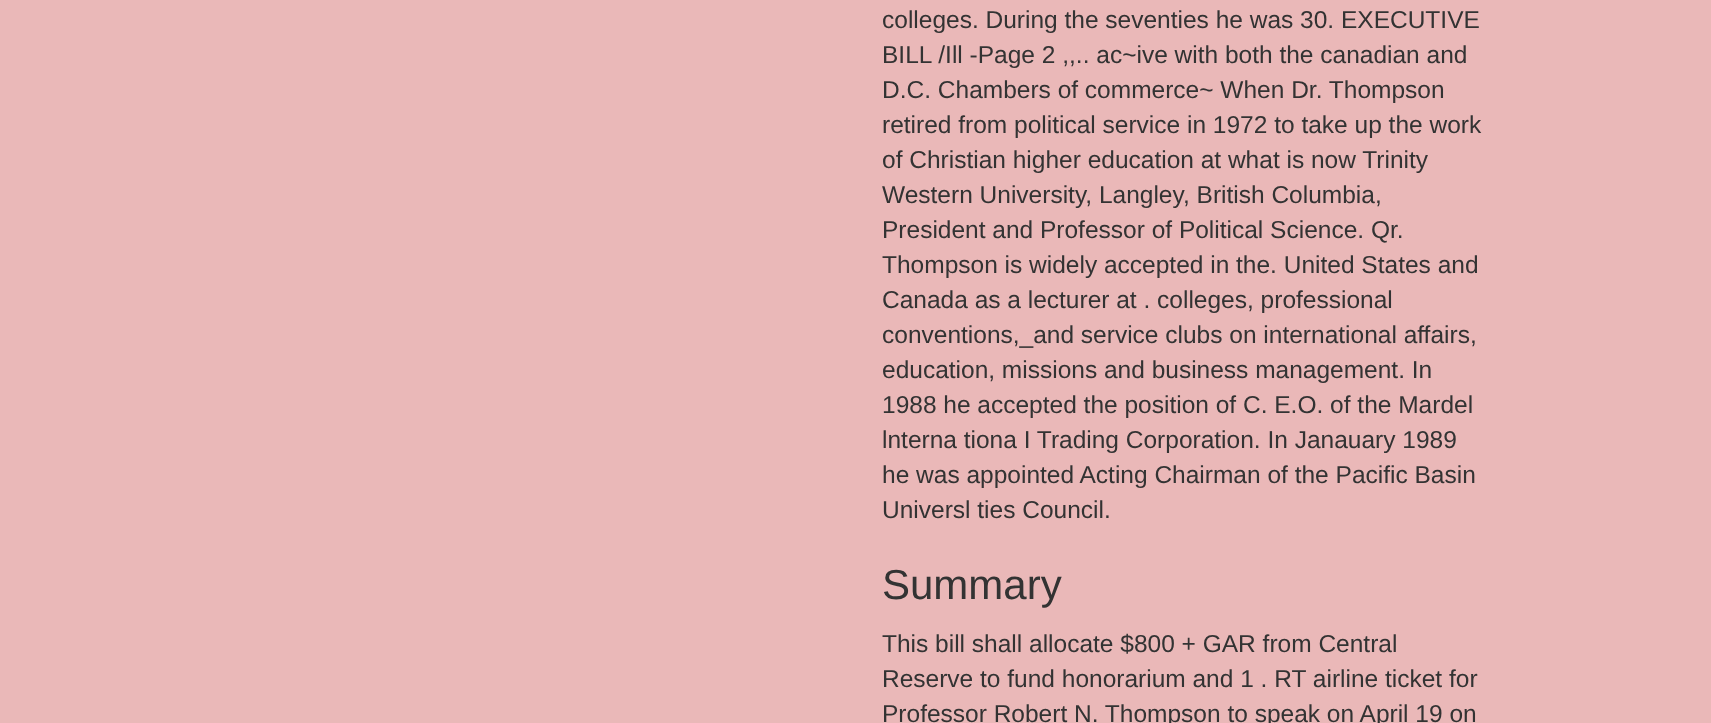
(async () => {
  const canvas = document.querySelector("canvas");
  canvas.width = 1711;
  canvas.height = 723;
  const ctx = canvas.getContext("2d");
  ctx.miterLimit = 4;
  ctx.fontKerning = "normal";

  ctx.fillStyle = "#eab8b8";
  ctx.fillRect(0, 0, 1711, 723);
  ctx.font = "24.5px Liberation Sans";
  ctx.fillStyle = "#333333";
  for (const [text, x, y] of [
    ["colleges. During the seventies he was 30. EXECUTIVE", 882, 28],
    ["BILL /Ill -Page 2 ,,.. ac~ive with both the canadian and", 882, 63],
    ["D.C. Chambers of commerce~ When Dr. Thompson", 882, 98],
    ["retired from political service in 1972 to take up the work", 882, 133],
    ["of Christian higher education at what is now Trinity", 882, 168],
    ["Western University, Langley, British Columbia,", 882, 203],
    ["President and Professor of Political Science. Qr.", 882, 238],
    ["Thompson is widely accepted in the. United States and", 882, 273],
    ["Canada as a lecturer at . colleges, professional", 882, 308],
    ["conventions,_and service clubs on international affairs,", 882, 343],
    ["education, missions and business management. In", 882, 378],
    ["1988 he accepted the position of C. E.O. of the Mardel", 882, 413],
    ["lnterna tiona I Trading Corporation. In Janauary 1989", 882, 448],
    ["he was appointed Acting Chairman of the Pacific Basin", 882, 483],
    ["Universl ties Council.", 882, 518],
  ]) {
    ctx.fillText(text, x, y);
  }
  ctx.font = "42px Liberation Sans";
  ctx.fillText("Summary", 882, 599);
  ctx.font = "24.5px Liberation Sans";
  for (const [text, x, y] of [
    ["This bill shall allocate $800 + GAR from Central", 882, 652],
    ["Reserve to fund honorarium and 1 . RT airline ticket for", 882, 687],
    ["Professor Robert N. Thompson to speak on April 19 on", 882, 722],
  ]) {
    ctx.fillText(text, x, y);
  }
})();
